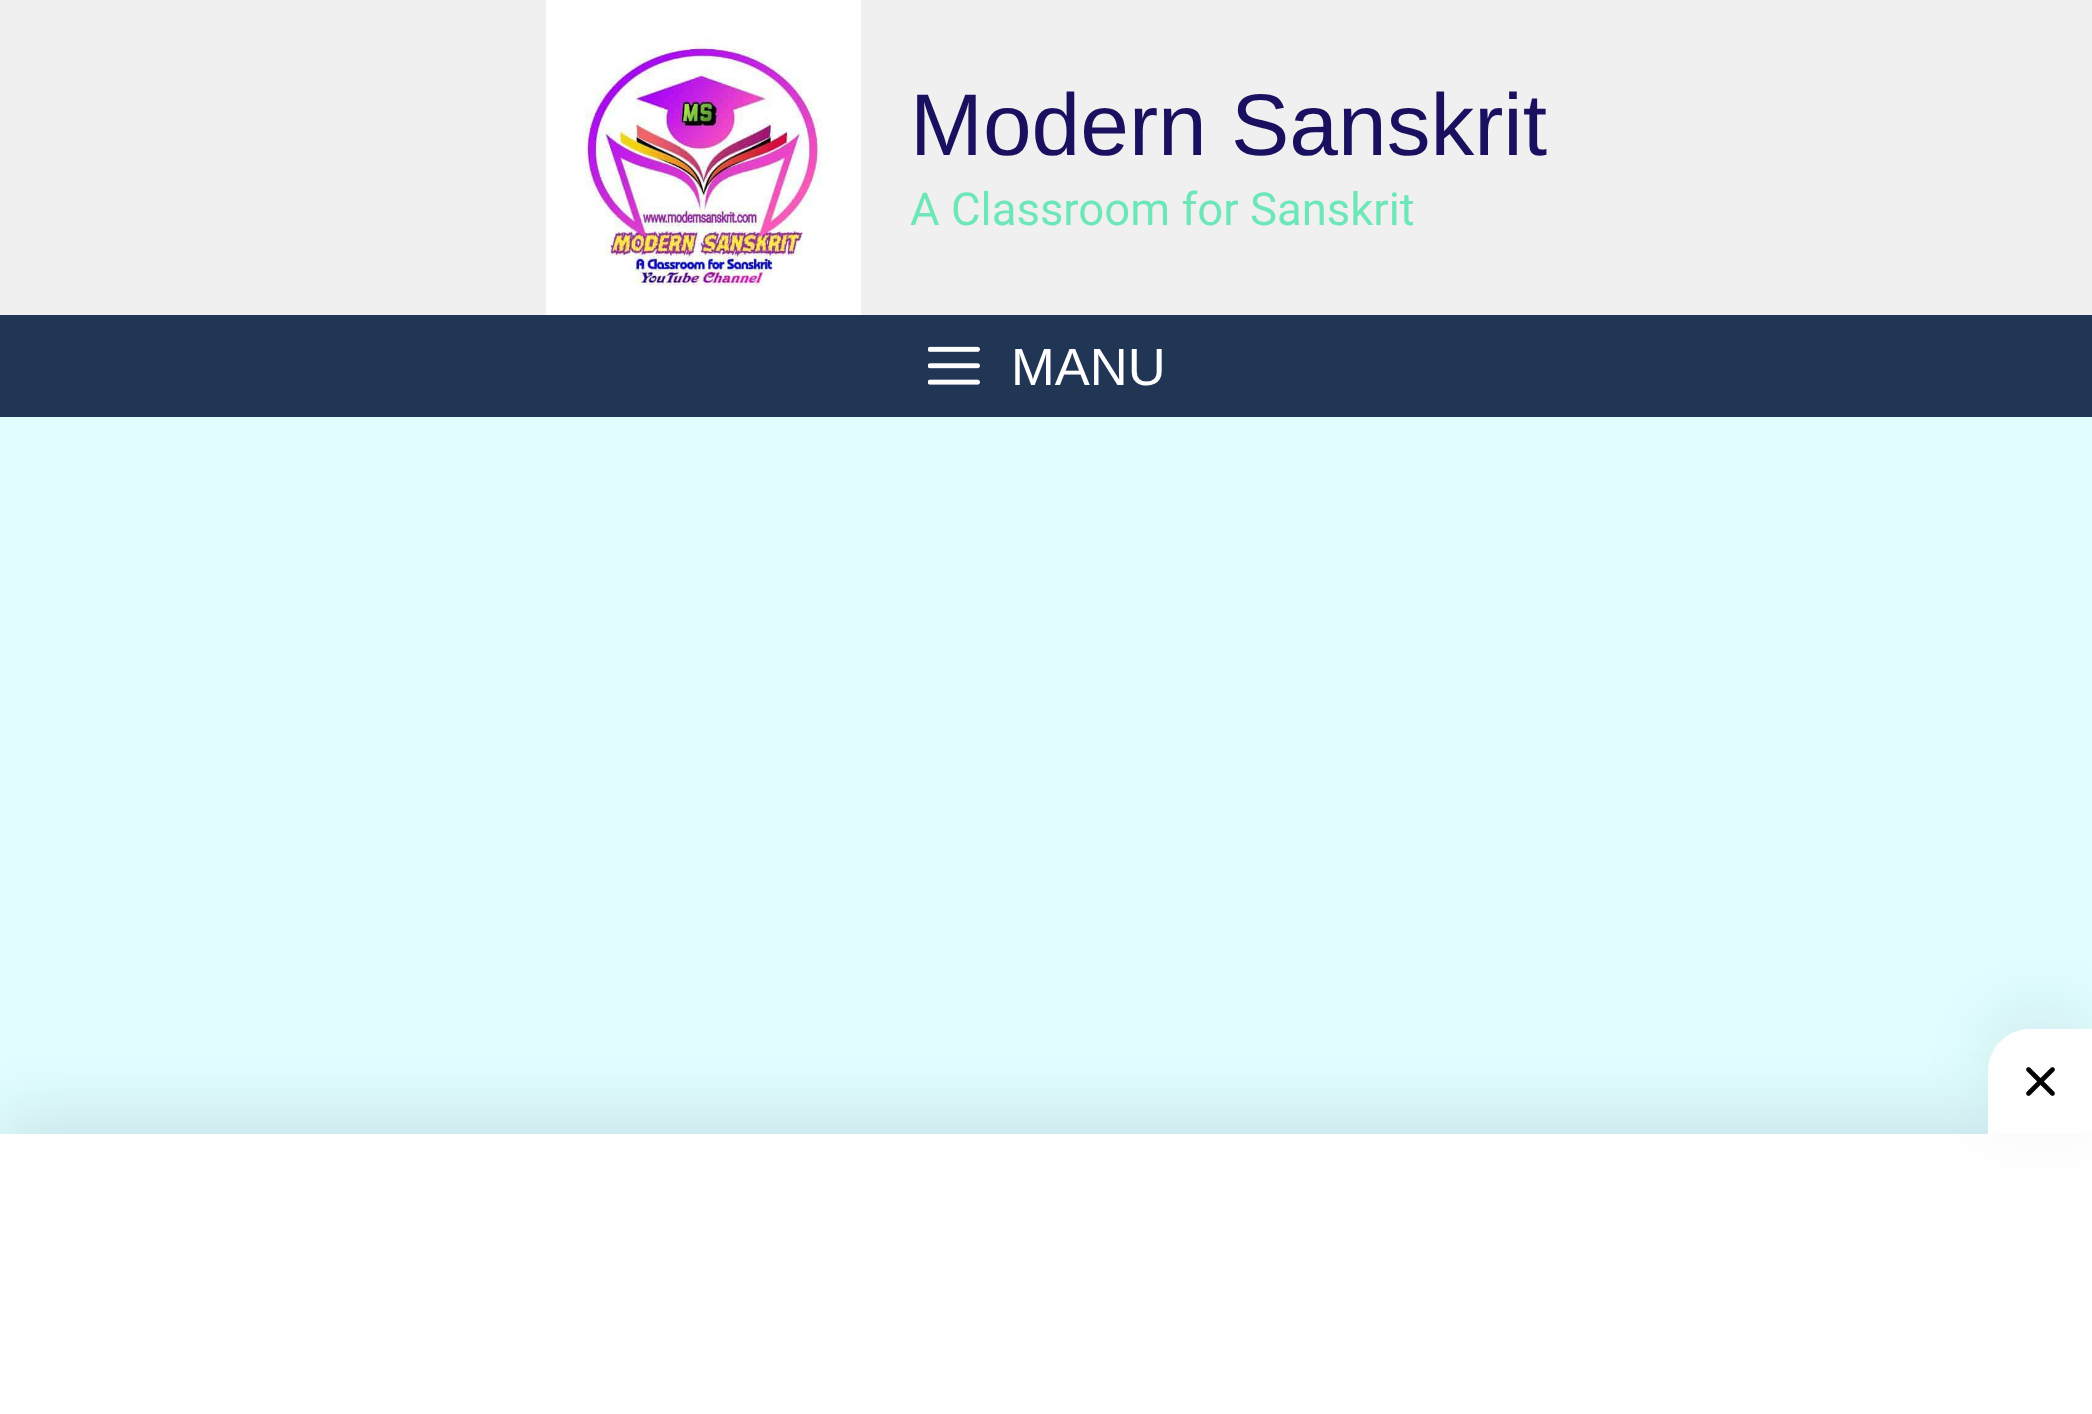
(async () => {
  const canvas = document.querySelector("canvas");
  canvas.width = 2092;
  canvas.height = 1414;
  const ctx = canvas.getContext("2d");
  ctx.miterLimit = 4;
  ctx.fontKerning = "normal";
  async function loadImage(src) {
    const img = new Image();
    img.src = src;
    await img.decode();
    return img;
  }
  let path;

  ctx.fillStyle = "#e1fdfd";
  ctx.fillRect(0, 0, 2092, 1414);
  ctx.fillStyle = "#f0f0f0";
  ctx.fillRect(0, 0, 2092, 315);
  ctx.drawImage(await loadImage("img/1.png"), 546, 0, 315, 315);
  ctx.fillStyle = "#213555";
  ctx.fillRect(0, 315, 2092, 102);
  ctx.drawImage(await loadImage("img/2.png"), 928, 346, 52, 39);
  ctx.fillStyle = "rgba(9, 32, 76, 0.1)";
  ctx.filter = "blur(31.5px)";
  ctx.beginPath();
  ctx.rect(0, 1113, 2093, 280);
  ctx.fill();
  ctx.filter = "none";
  ctx.fillStyle = "#fefefe";
  ctx.fillRect(0, 1134, 2092, 280);
  ctx.fillStyle = "rgba(9, 32, 76, 0.08)";
  ctx.filter = "blur(31.5px)";
  ctx.beginPath();
  ctx.roundRect(1988, 1008, 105, 105, 42);
  ctx.fill();
  ctx.filter = "none";
  ctx.fillStyle = "#fefefe";
  path = new Path2D("M2030 1029H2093V1134H1988V1071C1988 1048 2007 1029 2030 1029Z");
  ctx.fill(path);
  ctx.drawImage(await loadImage("img/3.png"), 2026, 1067, 29, 29);
  ctx.font = "87.5px Liberation Sans";
  ctx.fillStyle = "#191060";
  ctx.fillText("Modern Sanskrit", 910, 155);
  ctx.font = "45.5px Roboto";
  ctx.fillStyle = "#6ee7b8";
  ctx.fillText("A Classroom for Sanskrit", 910, 225);
  ctx.font = "52.5px Liberation Sans";
  ctx.fillStyle = "#ffffff";
  ctx.fillText("MANU", 1011, 385);
})();
